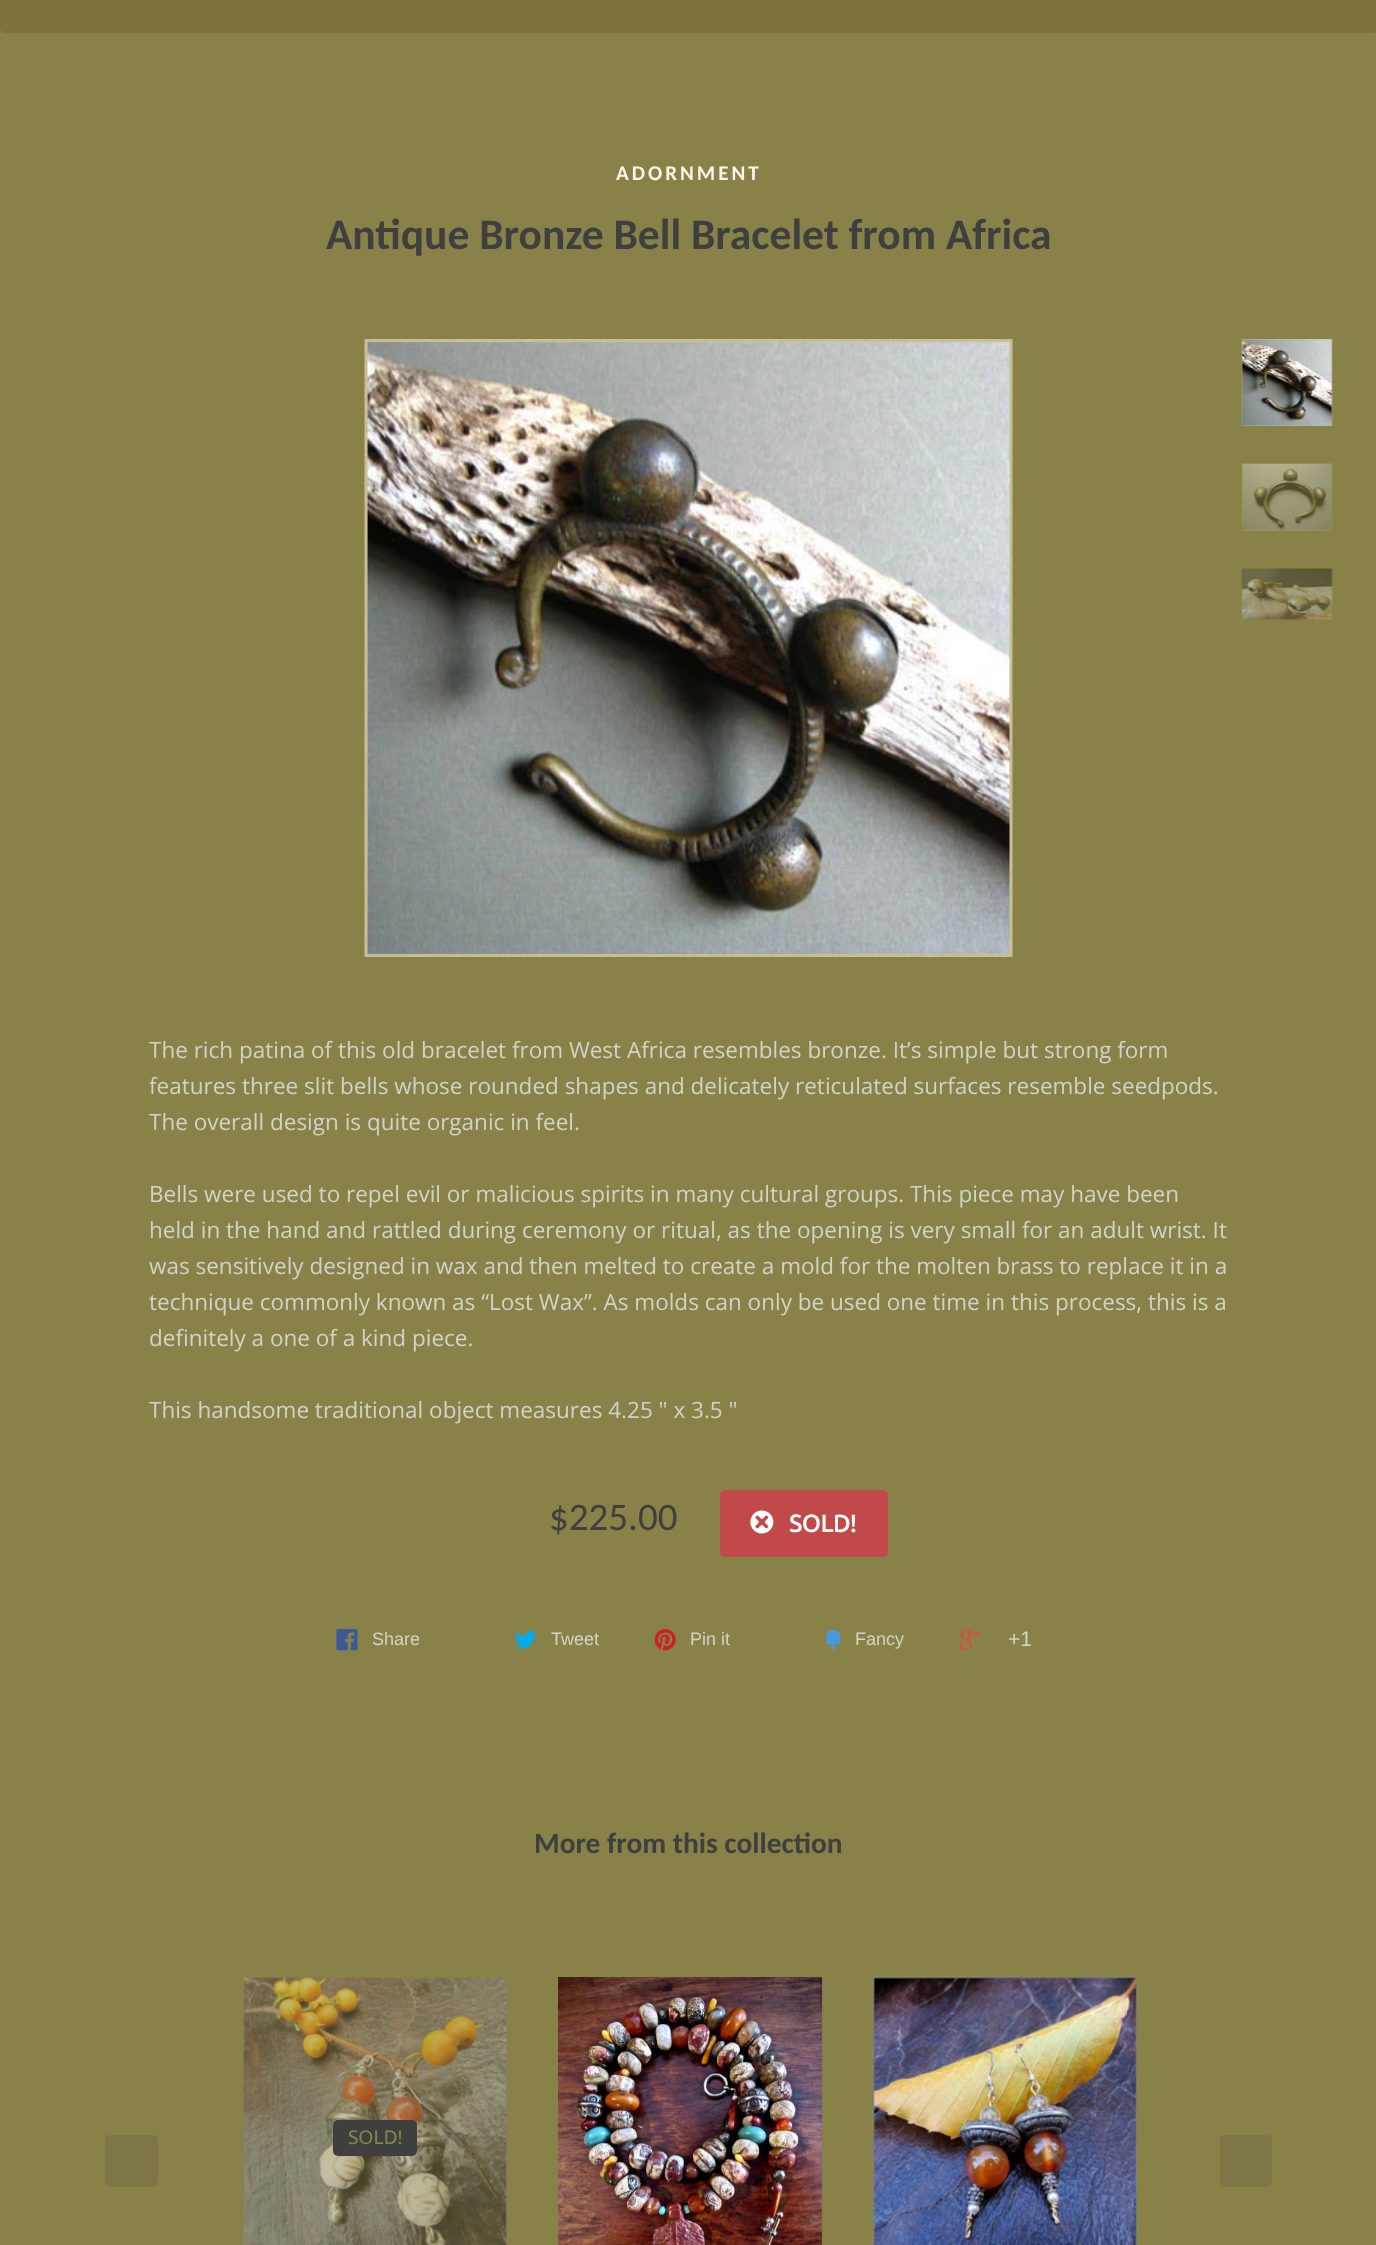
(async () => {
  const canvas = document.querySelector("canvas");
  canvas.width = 1376;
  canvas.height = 2245;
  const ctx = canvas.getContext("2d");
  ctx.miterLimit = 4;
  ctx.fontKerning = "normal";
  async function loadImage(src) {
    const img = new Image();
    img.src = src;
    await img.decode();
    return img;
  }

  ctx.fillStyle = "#888148";
  ctx.fillRect(0, 0, 1376, 2245);
  ctx.fillStyle = "#80723d";
  ctx.beginPath();
  ctx.roundRect(0, -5, 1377, 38, 5);
  ctx.fill();
  ctx.drawImage(await loadImage("img/1.png"), 364, 339, 649, 618);
  ctx.drawImage(await loadImage("img/2.png"), 1241, 339, 92, 87);
  ctx.drawImage(await loadImage("img/3.png"), 1241, 463, 92, 68);
  ctx.drawImage(await loadImage("img/4.png"), 1241, 568, 92, 52);
  ctx.fillStyle = "#c14949";
  ctx.beginPath();
  ctx.roundRect(720, 1490, 168, 67, 5);
  ctx.fill();
  ctx.drawImage(await loadImage("img/5.png"), 750, 1510, 24, 24);
  ctx.drawImage(await loadImage("img/6.png"), 336, 1629, 22, 22);
  ctx.drawImage(await loadImage("img/7.png"), 515, 1630, 22, 19);
  ctx.drawImage(await loadImage("img/8.png"), 654, 1629, 22, 22);
  ctx.drawImage(await loadImage("img/9.png"), 826, 1629, 15, 21);
  ctx.drawImage(await loadImage("img/10.png"), 959, 1629, 22, 22);
  ctx.fillStyle = "#7d7747";
  ctx.beginPath();
  ctx.roundRect(105, 2135, 53, 52, 5);
  ctx.fill();
  ctx.drawImage(await loadImage("img/11.png"), 242, 1976, 266, 269);
  ctx.fillStyle = "#403f3f";
  ctx.beginPath();
  ctx.roundRect(333, 2120, 84, 36, 5);
  ctx.fill();
  ctx.drawImage(await loadImage("img/12.png"), 558, 1977, 265, 268);
  ctx.drawImage(await loadImage("img/13.png"), 872, 1976, 266, 269);
  ctx.fillStyle = "#7d7747";
  ctx.beginPath();
  ctx.roundRect(1220, 2135, 52, 52, 5);
  ctx.fill();
  ctx.letterSpacing = "3px";
  ctx.font = "bold 21px Carlito";
  ctx.fillStyle = "#fff2e7";
  ctx.fillText("ADORNMENT", 616, 180);
  ctx.letterSpacing = "0px";
  ctx.font = "bold 43.5px Carlito";
  ctx.fillStyle = "#403f3f";
  ctx.fillText("Antique Bronze Bell Bracelet from Africa", 326, 249);
  ctx.font = "22.5px Open Sans";
  ctx.fillStyle = "#d0d4c7";
  for (const [text, x, y] of [
    ["The rich patina of this old bracelet from West Africa resembles bronze. It’s simple but strong form", 149, 1058],
    ["features three slit bells whose rounded shapes and delicately reticulated surfaces resemble seedpods.", 149, 1094],
    ["The overall design is quite organic in feel.", 149, 1130],
    ["Bells were used to repel evil or malicious spirits in many cultural groups. This piece may have been", 149, 1202],
    ["held in the hand and rattled during ceremony or ritual, as the opening is very small for an adult wrist. It", 149, 1238],
    ["was sensitively designed in wax and then melted to create a mold for the molten brass to replace it in a", 149, 1274],
    ["technique commonly known as “Lost Wax”. As molds can only be used one time in this process, this is a", 149, 1310],
    ["definitely a one of a kind piece.", 149, 1346],
    ["This handsome traditional object measures 4.25 \" x 3.5 \"", 149, 1418],
  ]) {
    ctx.fillText(text, x, y);
  }
  ctx.font = "39px Carlito";
  ctx.fillStyle = "#403f3f";
  ctx.fillText("$225.00", 549, 1530);
  ctx.font = "bold 24px Ubuntu";
  ctx.fillStyle = "#ffffff";
  ctx.fillText("SOLD!", 789, 1532);
  ctx.font = "18px Liberation Sans";
  ctx.fillStyle = "#d0d4c7";
  for (const [text, x, y] of [
    ["Share", 372, 1645],
    ["Tweet", 551, 1645],
    ["Pin it", 690, 1645],
    ["Fancy", 855, 1645],
  ]) {
    ctx.fillText(text, x, y);
  }
  ctx.font = "21px Liberation Sans";
  ctx.fillText("+1", 1008, 1646);
  ctx.font = "bold 29.4px Carlito";
  ctx.fillStyle = "#403f3f";
  ctx.fillText("More from this collection", 534, 1853);
  ctx.font = "19.5px Ubuntu";
  ctx.fillStyle = "#888148";
  ctx.fillText("SOLD!", 348, 2144);
})();
